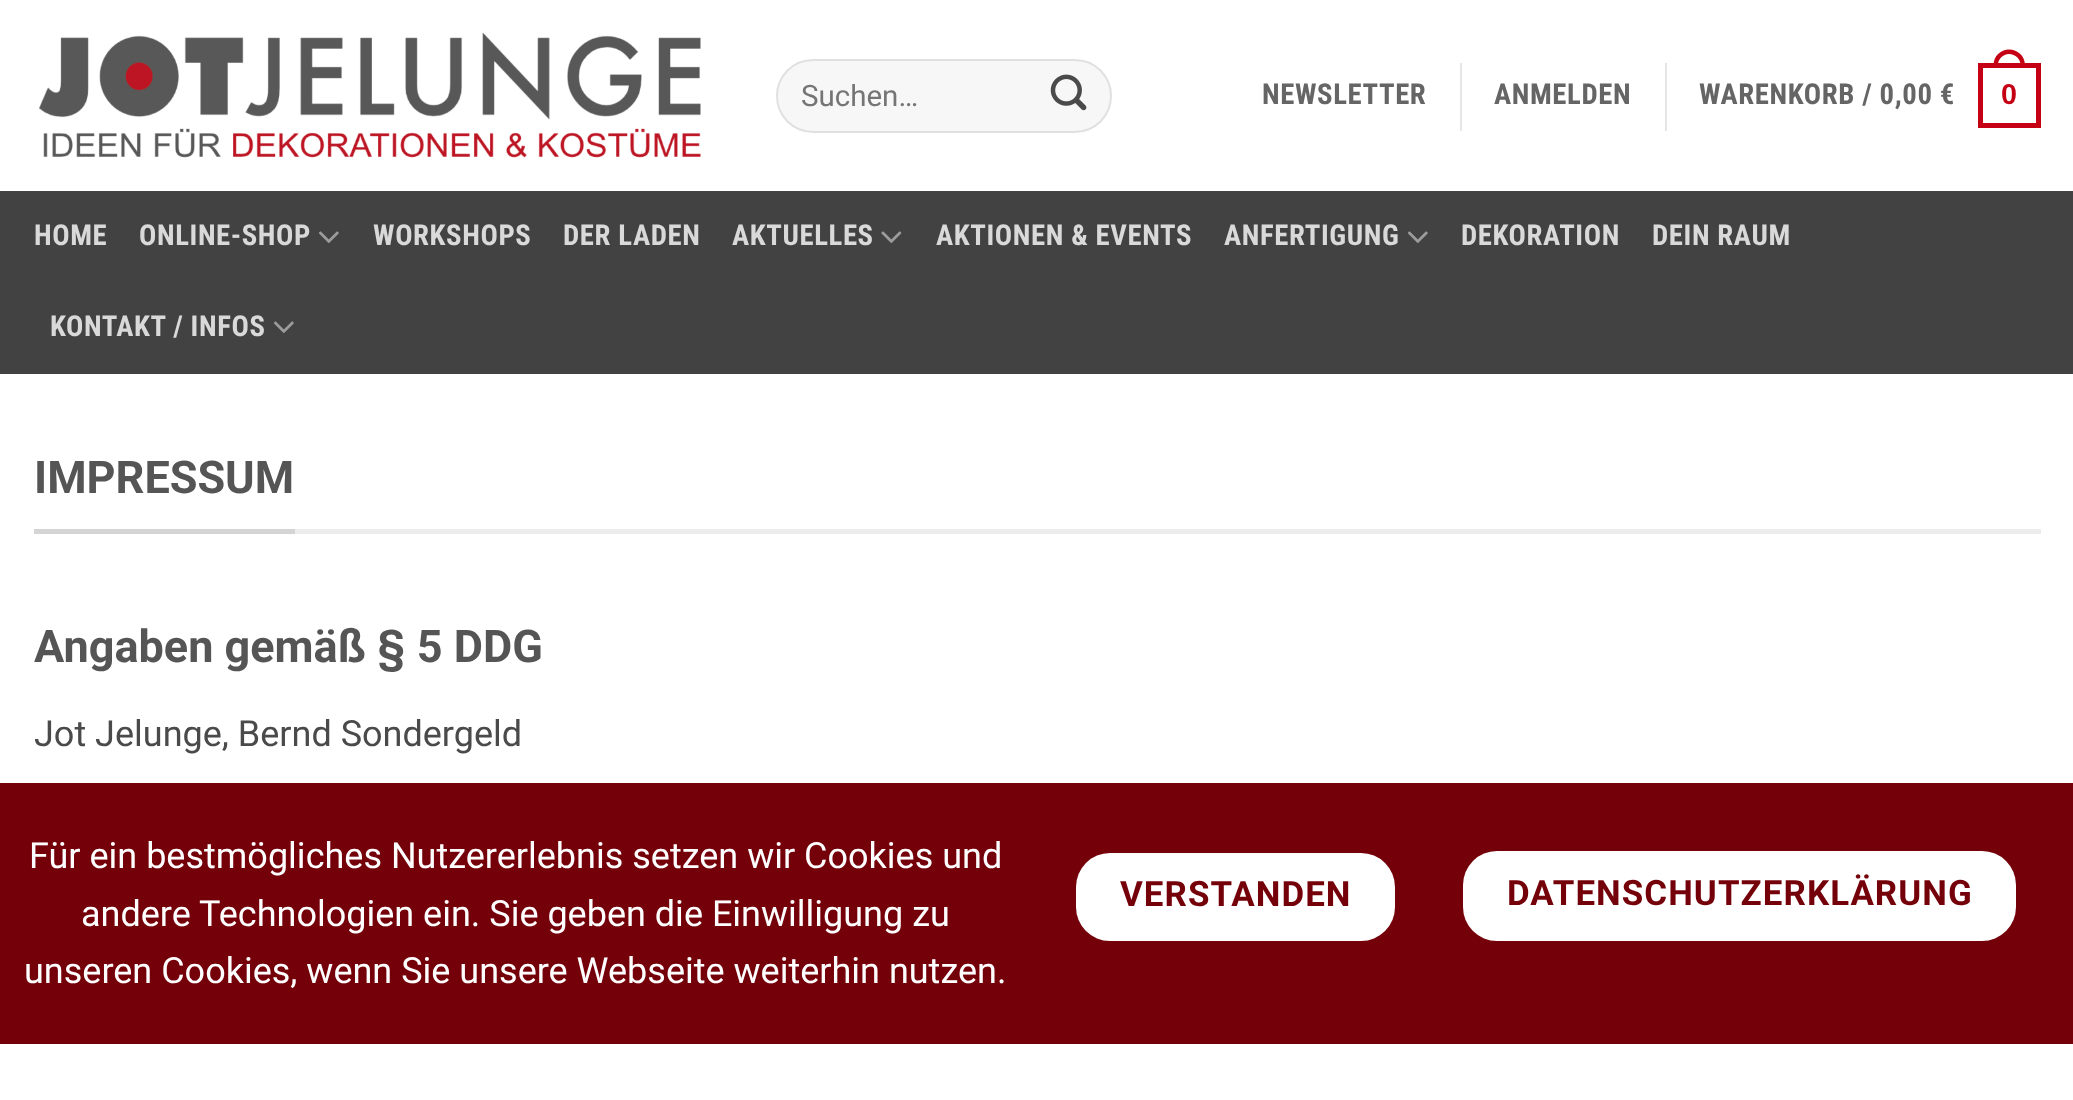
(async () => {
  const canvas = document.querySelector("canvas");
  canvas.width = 2073;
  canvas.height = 1100;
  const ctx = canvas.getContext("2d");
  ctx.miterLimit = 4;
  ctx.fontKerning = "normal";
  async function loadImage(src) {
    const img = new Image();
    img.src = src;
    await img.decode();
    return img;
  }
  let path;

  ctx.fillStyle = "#ffffff";
  ctx.fillRect(0, 0, 2073, 1100);
  ctx.drawImage(await loadImage("img/1.png"), 38, 32, 663, 126);
  ctx.fillStyle = "#f7f7f7";
  ctx.beginPath();
  ctx.roundRect(776, 59, 336, 74, 37);
  ctx.fill();
  ctx.beginPath();
  ctx.roundRect(777, 60, 334, 72, 36);
  ctx.strokeStyle = "rgba(0, 0, 0, 0.09)";
  ctx.lineWidth = 2;
  ctx.stroke();
  ctx.drawImage(await loadImage("img/2.png"), 1050, 74, 37, 37);
  ctx.fillStyle = "#e6e6e6";
  ctx.fillRect(1460, 63, 2, 68);
  ctx.fillRect(1665, 63, 2, 68);
  ctx.strokeStyle = "#c50014";
  ctx.lineWidth = 5;
  ctx.strokeRect(1980.5, 65.5, 58, 60);
  ctx.fillStyle = "#c50014";
  path = new Path2D("M2009 49.5C2018 49.5 2025 56.5 2025 65V67.5H1993.5V65C1993.5 56.5 2000.5 49.5 2009 49.5ZM2009 54C2015.5 54 2020.5 59 2020.5 65V67.5H1998V65C1998 59 2003 54 2009 54Z");
  ctx.fill(path, "evenodd");
  ctx.fillStyle = "#424242";
  ctx.fillRect(0, 191, 2073, 183);
  ctx.drawImage(await loadImage("img/3.png"), 318, 231, 21, 12);
  ctx.drawImage(await loadImage("img/4.png"), 881, 231, 21, 12);
  ctx.drawImage(await loadImage("img/3.png"), 1407, 231, 21, 12);
  ctx.drawImage(await loadImage("img/3.png"), 273, 321, 21, 12);
  for (const [x, y, w, h, color] of [
    [295, 529, 1746, 5, "#ececec"],
    [34, 529, 261, 5, "#d4d4d4"],
    [0, 783, 2073, 261, "#740009"],
  ]) {
    ctx.fillStyle = color;
    ctx.fillRect(x, y, w, h);
  }
  ctx.fillStyle = "#ffffff";
  ctx.beginPath();
  ctx.roundRect(1076, 853, 319, 88, 34);
  ctx.fill();
  ctx.beginPath();
  ctx.roundRect(1463, 851, 553, 90, 34);
  ctx.fill();
  ctx.font = "29.5px Roboto";
  ctx.fillStyle = "#757575";
  ctx.fillText("Suchen…", 801, 106);
  ctx.letterSpacing = "0.6px";
  ctx.font = "bold 28.75px Roboto Condensed";
  ctx.fillStyle = "#656565";
  for (const [text, x, y] of [
    ["NEWSLETTER", 1262, 104],
    ["ANMELDEN", 1494, 104],
    ["WARENKORB / 0,00 €", 1699, 104],
  ]) {
    ctx.fillText(text, x, y);
  }
  ctx.font = "bold 28.75px Liberation Sans";
  ctx.fillStyle = "#c50014";
  ctx.fillText("0", 2001, 104);
  ctx.font = "bold 28.75px Roboto Condensed";
  ctx.fillStyle = "#d9d9d9";
  for (const [text, x, y] of [
    ["HOME", 34, 245],
    ["ONLINE-SHOP", 139, 245],
    ["WORKSHOPS", 373, 245],
    ["DER LADEN", 563, 245],
    ["AKTUELLES", 732, 245],
    ["AKTIONEN & EVENTS", 936, 245],
    ["ANFERTIGUNG", 1224, 245],
    ["DEKORATION", 1461, 245],
    ["DEIN RAUM", 1652, 245],
    ["KONTAKT / INFOS", 50, 336],
  ]) {
    ctx.fillText(text, x, y);
  }
  ctx.letterSpacing = "0px";
  ctx.font = "bold 45px Roboto";
  ctx.fillStyle = "#555555";
  ctx.fillText("IMPRESSUM", 34, 493);
  ctx.fillText("Angaben gemäß § 5 DDG", 34, 662);
  ctx.font = "36px Roboto";
  ctx.fillStyle = "#4a4a4a";
  ctx.fillText("Jot Jelunge, Bernd Sondergeld", 34, 746);
  ctx.fillStyle = "#ffffff";
  for (const [text, x, y] of [
    ["Für ein bestmögliches Nutzererlebnis setzen wir Cookies und", 29, 868],
    ["andere Technologien ein. Sie geben die Einwilligung zu", 81, 926],
    ["unseren Cookies, wenn Sie unsere Webseite weiterhin nutzen.", 24, 983],
  ]) {
    ctx.fillText(text, x, y);
  }
  ctx.letterSpacing = "1.05px";
  ctx.font = "bold 34.9px Roboto";
  ctx.fillStyle = "#740009";
  ctx.fillText("VERSTANDEN", 1120, 906);
  ctx.fillText("DATENSCHUTZERKLÄRUNG", 1507, 905);
})();
